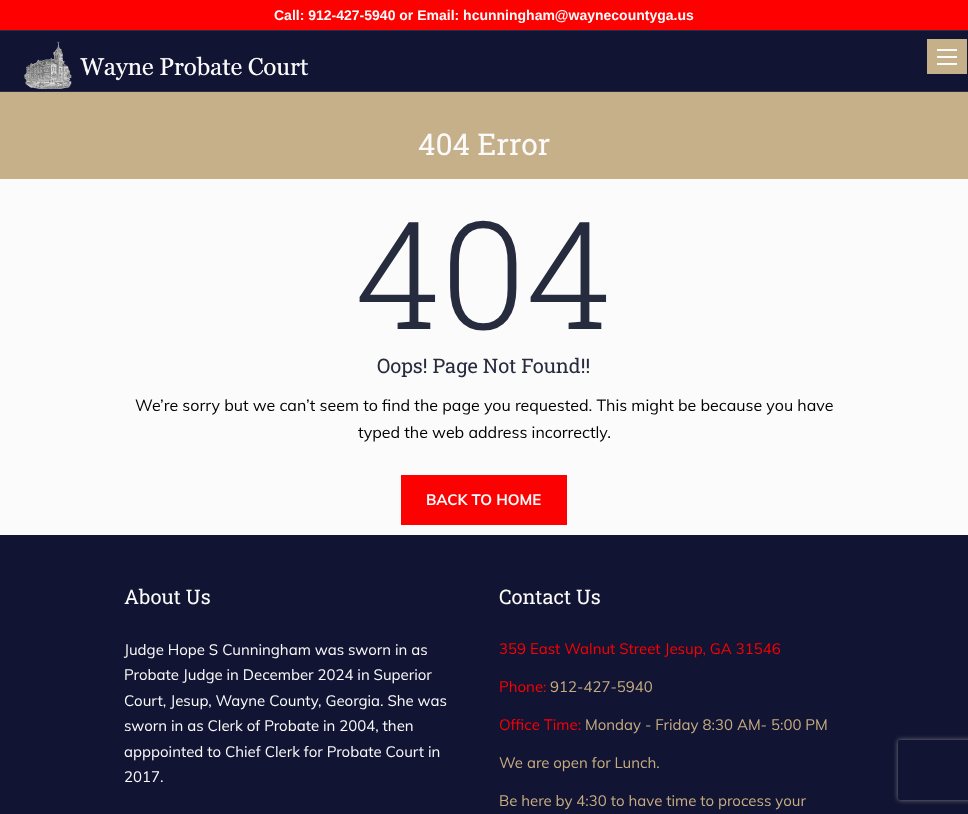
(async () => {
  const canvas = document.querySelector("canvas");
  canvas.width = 968;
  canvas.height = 814;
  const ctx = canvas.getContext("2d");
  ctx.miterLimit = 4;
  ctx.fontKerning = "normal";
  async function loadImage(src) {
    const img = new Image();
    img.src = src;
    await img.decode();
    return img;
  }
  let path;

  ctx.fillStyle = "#fbfbfb";
  ctx.fillRect(0, 0, 968, 814);
  for (const [x, y, w, h, color] of [
    [0, 0, 968, 30, "#ff0000"],
    [0, 31, 968, 60, "#121433"],
    [0, 30, 968, 1, "#2a2c47"],
    [0, 91, 968, 1, "#2a2c47"],
  ]) {
    ctx.fillStyle = color;
    ctx.fillRect(x, y, w, h);
  }
  ctx.drawImage(await loadImage("img/1.png"), 24, 41, 285, 49);
  for (const [x, y, w, h, color] of [
    [927, 39, 40, 35, "#c6b08a"],
    [937, 49, 20, 2, "#fbfbfb"],
    [937, 56, 20, 2, "#fbfbfb"],
    [937, 63, 20, 2, "#fbfbfb"],
    [0, 92, 968, 87, "#c6b08a"],
    [401, 475, 166, 50, "#fb0101"],
    [0, 535, 968, 279, "#121433"],
  ]) {
    ctx.fillStyle = color;
    ctx.fillRect(x, y, w, h);
  }
  ctx.save();
  path = new Path2D("M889 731H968V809H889ZM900 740H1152C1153 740 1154 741 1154 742V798C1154 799 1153 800 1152 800H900C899 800 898 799 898 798V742C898 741 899 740 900 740Z");
  ctx.clip(path, "evenodd");
  ctx.fillStyle = "#7e7e7f";
  ctx.filter = "blur(2.5px)";
  ctx.beginPath();
  ctx.roundRect(898, 740, 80, 60, 2);
  ctx.fill();
  ctx.filter = "none";
  ctx.restore();
  ctx.font = "bold 14px Liberation Sans";
  ctx.fillStyle = "#fbfbfb";
  ctx.fillText("Call: 912-427-5940 or Email: hcunningham@waynecountyga.us", 274, 20);
  ctx.font = "30px Roboto Slab";
  ctx.fillText("404 Error", 418, 155);
  ctx.font = "300 150px Roboto Slab";
  ctx.fillStyle = "#262b3e";
  ctx.fillText("404", 355, 329);
  ctx.font = "20px Roboto Slab";
  ctx.fillText("Oops! Page Not Found!!", 377, 373);
  ctx.font = "16px Muli";
  ctx.fillStyle = "#010101";
  ctx.fillText("We’re sorry but we can’t seem to find the page you requested. This might be because you have", 135, 411);
  ctx.fillText("typed the web address incorrectly.", 358, 438);
  ctx.font = "bold 15px Muli";
  ctx.fillStyle = "#fbfbfb";
  ctx.fillText("BACK TO HOME", 426, 505);
  ctx.font = "20px Roboto Slab";
  ctx.fillText("About Us", 124, 604);
  ctx.font = "15px Muli";
  for (const [text, x, y] of [
    ["Judge Hope S Cunningham was sworn in as", 124, 655],
    ["Probate Judge in December 2024 in Superior", 124, 680],
    ["Court, Jesup, Wayne County, Georgia. She was", 124, 706],
    ["sworn in as Clerk of Probate in 2004, then", 124, 731],
    ["apppointed to Chief Clerk for Probate Court in", 124, 757],
    ["2017.", 124, 782],
  ]) {
    ctx.fillText(text, x, y);
  }
  ctx.font = "20px Roboto Slab";
  ctx.fillText("Contact Us", 499, 604);
  ctx.font = "15px Muli";
  ctx.fillStyle = "#fb0101";
  ctx.fillText("359 East Walnut Street Jesup, GA 31546", 499, 654);
  ctx.fillText("Phone:", 499, 692);
  ctx.fillStyle = "#c6ad81";
  ctx.fillText("912-427-5940", 550, 692);
  ctx.fillStyle = "#fb0101";
  ctx.fillText("Office Time:", 499, 730);
  ctx.fillStyle = "#c6ad81";
  for (const [text, x, y] of [
    ["Monday - Friday 8:30 AM- 5:00 PM", 585, 730],
    ["We are open for Lunch.", 499, 768],
    ["Be here by 4:30 to have time to process your", 499, 806],
  ]) {
    ctx.fillText(text, x, y);
  }
})();
